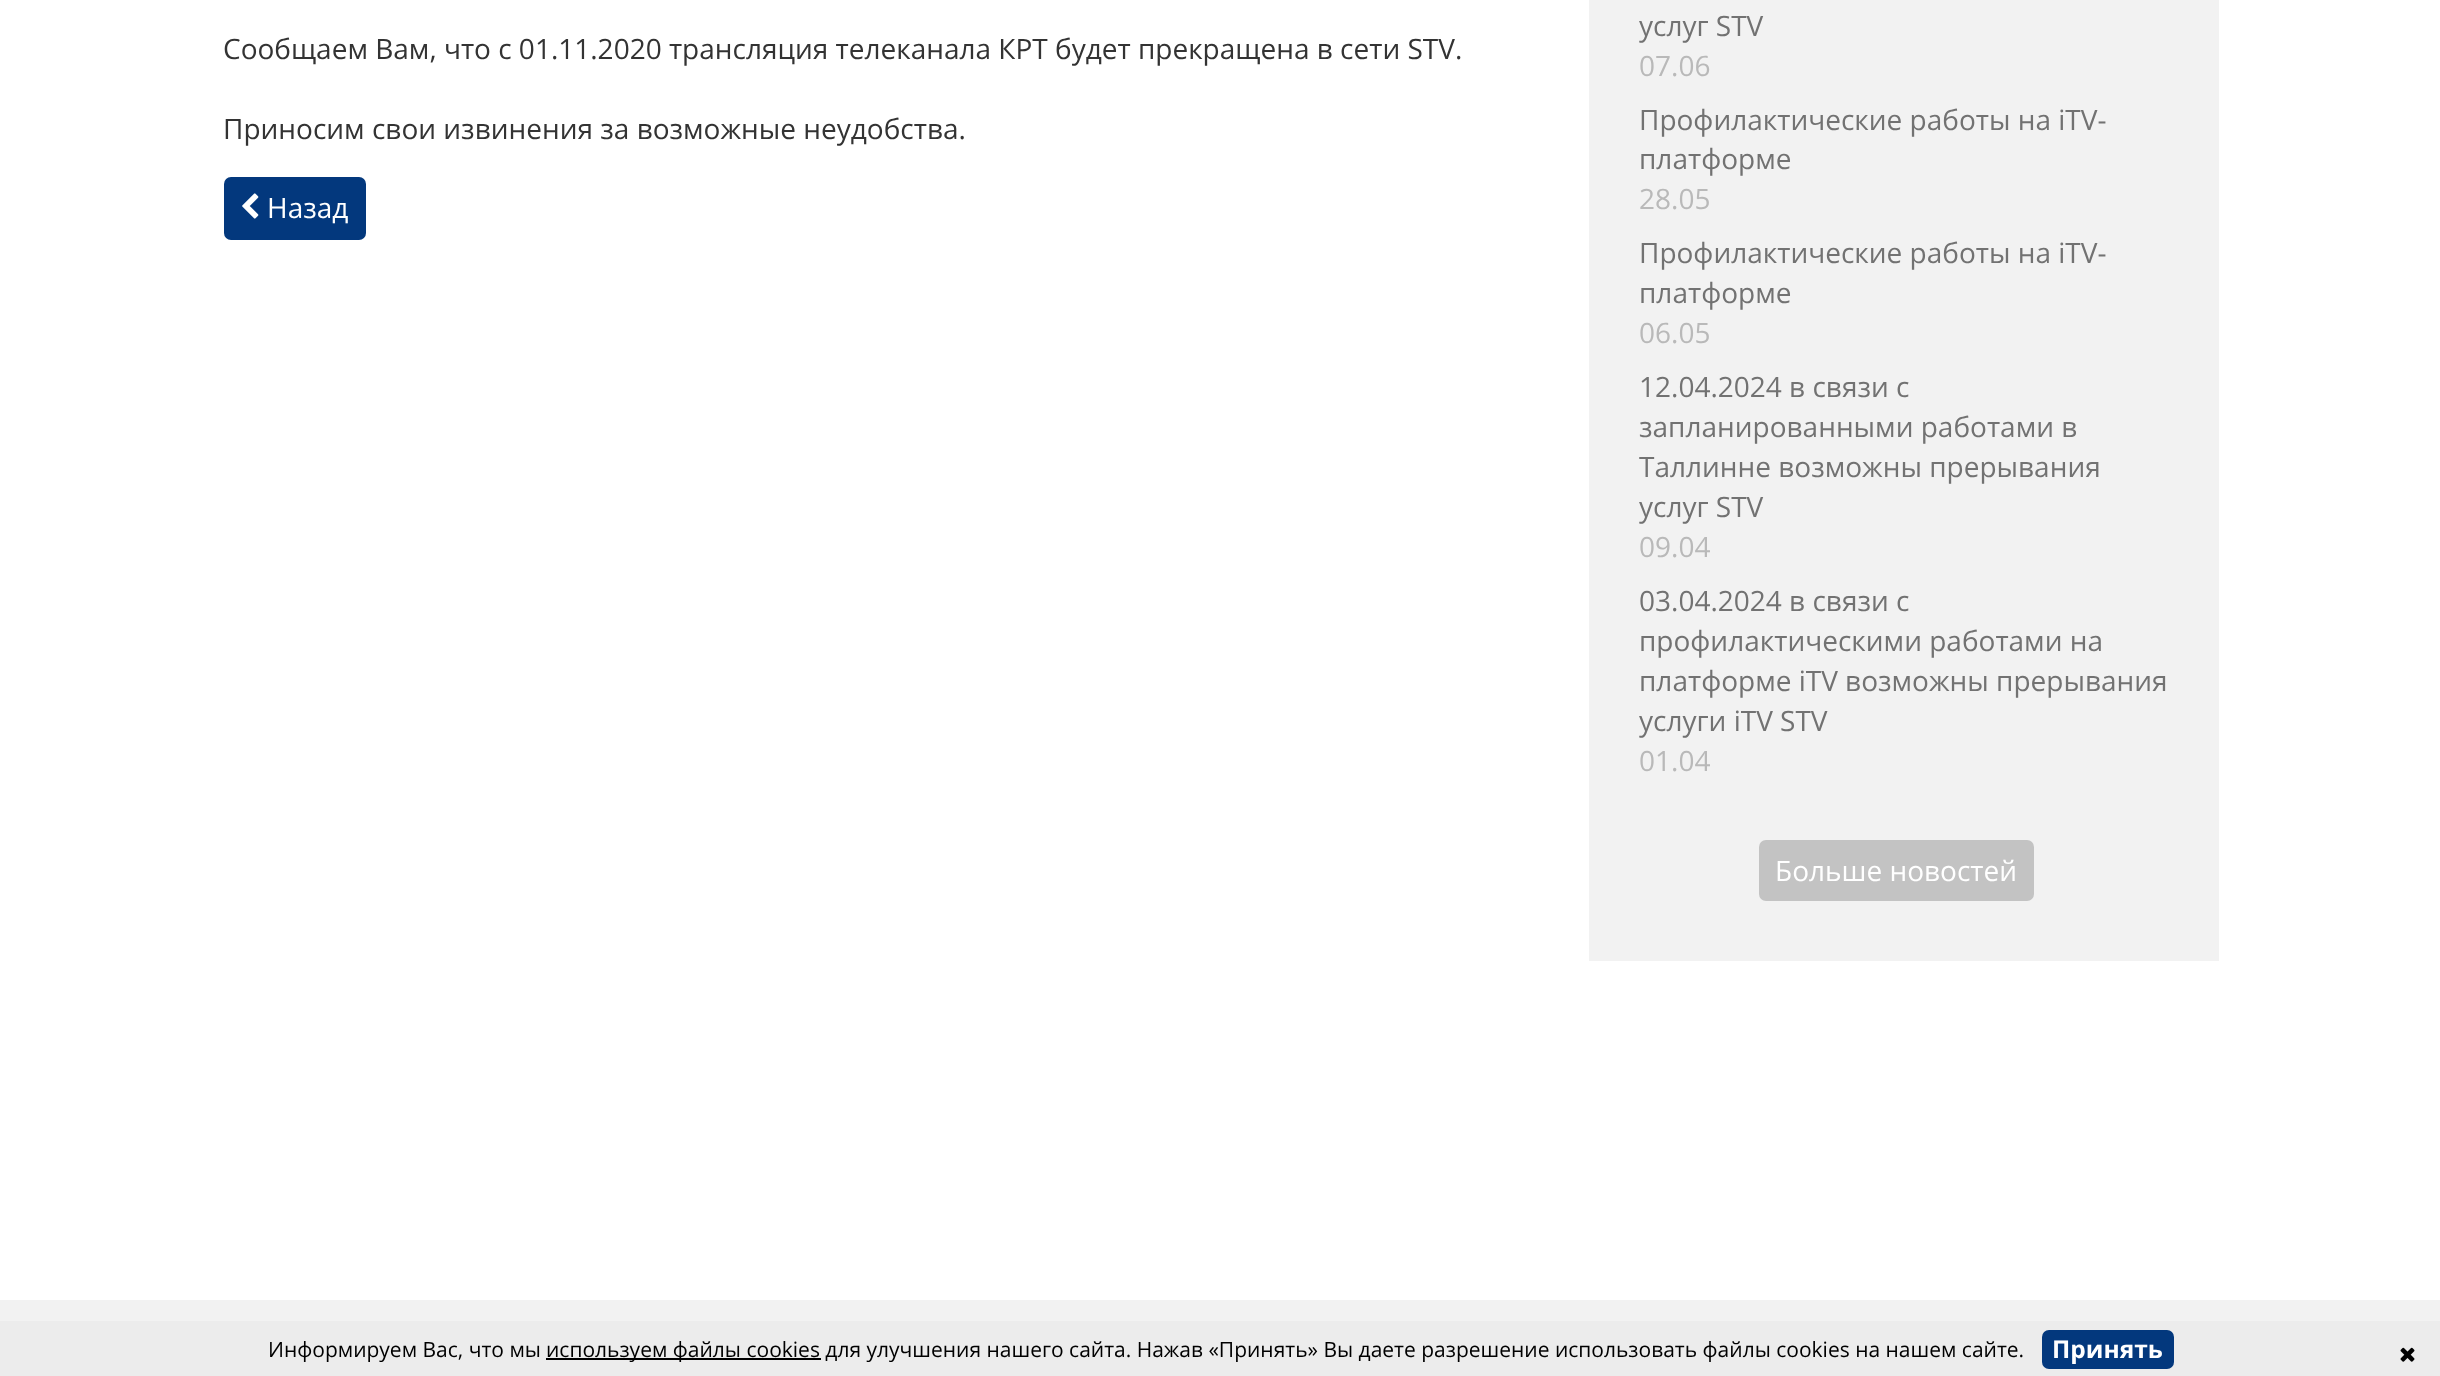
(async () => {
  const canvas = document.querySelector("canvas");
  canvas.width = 2440;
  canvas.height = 1376;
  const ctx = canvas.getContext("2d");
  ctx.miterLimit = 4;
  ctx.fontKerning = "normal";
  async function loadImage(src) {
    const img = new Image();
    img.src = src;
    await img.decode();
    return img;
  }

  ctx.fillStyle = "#ffffff";
  ctx.fillRect(0, 0, 2440, 1376);
  ctx.fillStyle = "#03387d";
  ctx.beginPath();
  ctx.roundRect(224, 177, 142, 63, 7);
  ctx.fill();
  ctx.drawImage(await loadImage("img/1.png"), 242, 193, 17, 26);
  ctx.fillStyle = "#f2f2f2";
  ctx.fillRect(1589, 0, 630, 961);
  ctx.fillStyle = "#c3c3c3";
  ctx.beginPath();
  ctx.roundRect(1759, 840, 275, 61, 7);
  ctx.fill();
  for (const [x, y, w, h, color] of [
    [0, 1300, 2440, 21, "#f2f2f2"],
    [0, 1321, 2440, 55, "#ececec"],
    [546, 1358, 275, 2, "#000000"],
  ]) {
    ctx.fillStyle = color;
    ctx.fillRect(x, y, w, h);
  }
  ctx.fillStyle = "#03387d";
  ctx.beginPath();
  ctx.roundRect(2042, 1330, 132, 39, 7);
  ctx.fill();
  ctx.drawImage(await loadImage("img/2.png"), 2400, 1347, 15, 15);
  ctx.font = "28px Open Sans";
  ctx.fillStyle = "#333333";
  ctx.fillText("Сообщаем Вам, что c 01.11.2020 трансляция телеканала КРТ будет прекращена в сети STV.", 223, 59);
  ctx.fillText("Приносим свои извинения за возможные неудобства.", 223, 139);
  ctx.fillStyle = "#ffffff";
  ctx.fillText("Назад", 267, 218);
  ctx.fillStyle = "#727272";
  ctx.fillText("услуг STV", 1639, 36);
  ctx.fillStyle = "#b9b9b9";
  ctx.fillText("07.06", 1639, 76);
  ctx.fillStyle = "#727272";
  ctx.fillText("Профилактические работы на iTV-", 1639, 130);
  ctx.fillText("платформе", 1639, 169);
  ctx.fillStyle = "#b9b9b9";
  ctx.fillText("28.05", 1639, 209);
  ctx.fillStyle = "#727272";
  ctx.fillText("Профилактические работы на iTV-", 1639, 263);
  ctx.fillText("платформе", 1639, 303);
  ctx.fillStyle = "#b9b9b9";
  ctx.fillText("06.05", 1639, 343);
  ctx.fillStyle = "#727272";
  for (const [text, x, y] of [
    ["12.04.2024 в связи с", 1639, 397],
    ["запланированными работами в", 1639, 437],
    ["Таллинне возможны прерывания", 1639, 477],
    ["услуг STV", 1639, 517],
  ]) {
    ctx.fillText(text, x, y);
  }
  ctx.fillStyle = "#b9b9b9";
  ctx.fillText("09.04", 1639, 557);
  ctx.fillStyle = "#727272";
  for (const [text, x, y] of [
    ["03.04.2024 в связи с", 1639, 611],
    ["профилактическими работами на", 1639, 651],
    ["платформе iTV возможны прерывания", 1639, 691],
    ["услуги iTV STV", 1639, 731],
  ]) {
    ctx.fillText(text, x, y);
  }
  ctx.fillStyle = "#b9b9b9";
  ctx.fillText("01.04", 1639, 771);
  ctx.fillStyle = "#ffffff";
  ctx.fillText("Больше новостей", 1775, 881);
  ctx.font = "21px Open Sans";
  ctx.fillStyle = "#000000";
  ctx.fillText("Информируем Вас, что мы", 268, 1357);
  ctx.fillText("используем файлы cookies для улучшения нашего сайта. Нажав «Принять» Вы даете разрешение использовать файлы cookies на нашем сайте.", 546, 1357);
  ctx.font = "bold 24.5px Open Sans";
  ctx.fillStyle = "#ffffff";
  ctx.fillText("Принять", 2052, 1358);
})();
